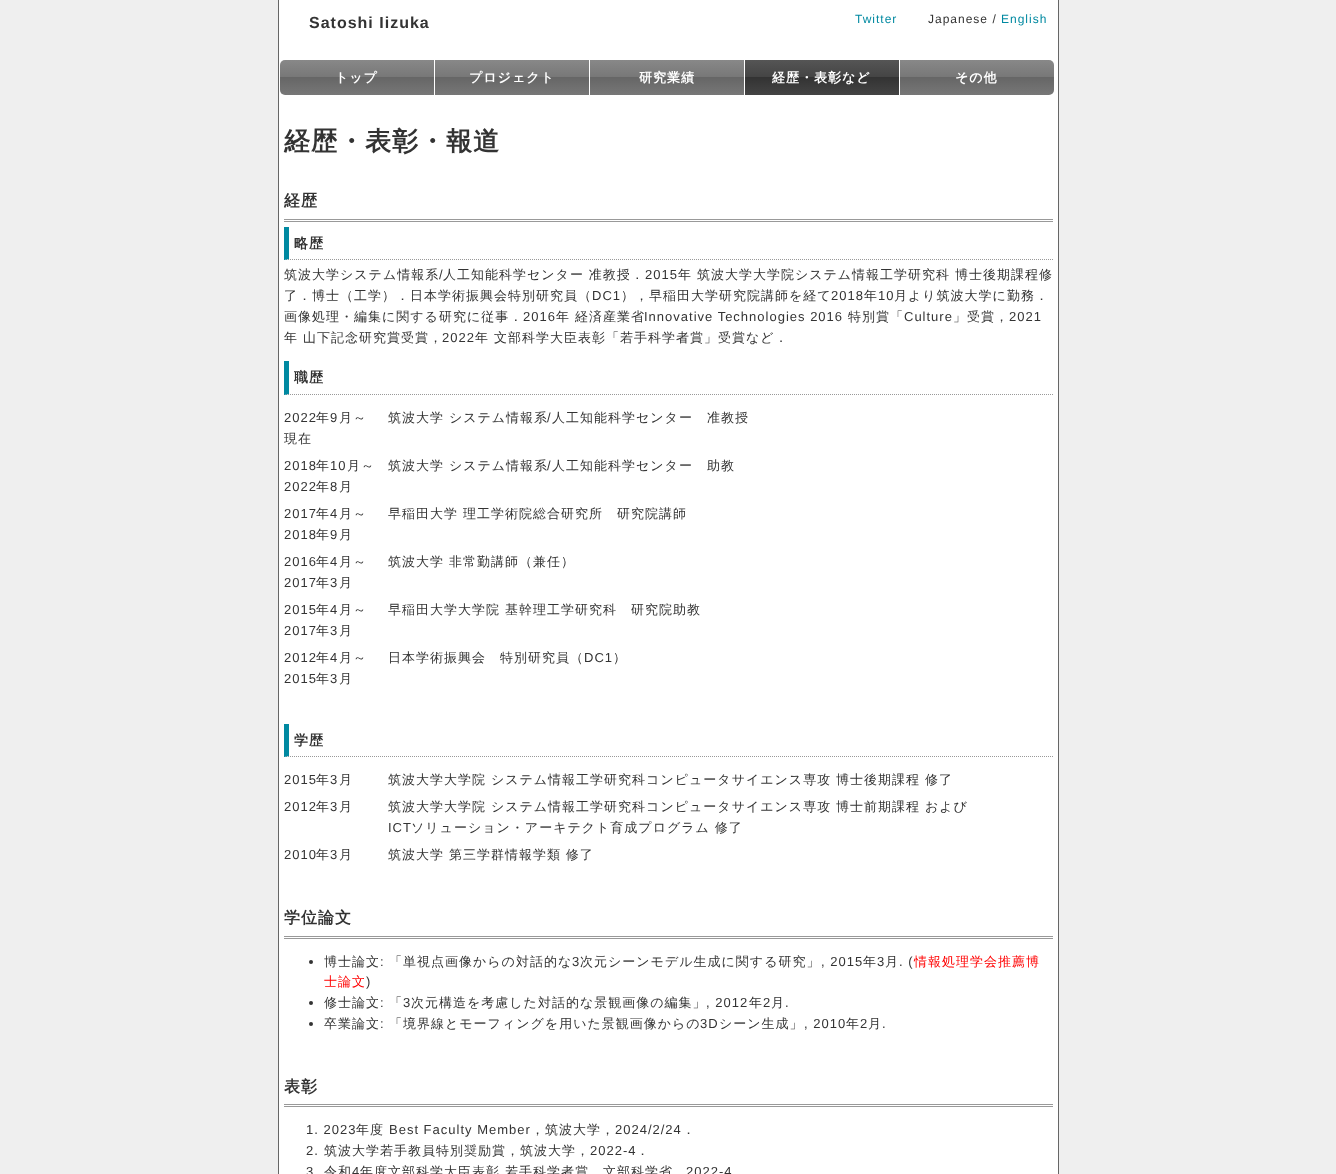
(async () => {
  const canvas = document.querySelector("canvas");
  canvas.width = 1336;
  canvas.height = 1174;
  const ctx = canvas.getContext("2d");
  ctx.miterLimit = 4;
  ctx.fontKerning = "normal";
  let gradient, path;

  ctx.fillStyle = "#efefef";
  ctx.fillRect(0, 0, 1336, 1174);
  for (const [x, y, w, h, color] of [
    [1058, 0, 1, 1174, "#666666"],
    [278, 0, 1, 1174, "#666666"],
    [279, 0, 779, 1174, "#ffffff"],
  ]) {
    ctx.fillStyle = color;
    ctx.fillRect(x, y, w, h);
  }
  gradient = ctx.createLinearGradient(280, 60, 280, 95);
  gradient.addColorStop(0, "#888888");
  gradient.addColorStop(0.5, "#777777");
  gradient.addColorStop(0.5, "#666666");
  gradient.addColorStop(1, "#777777");
  ctx.fillStyle = gradient;
  ctx.beginPath();
  ctx.roundRect(280, 60, 154, 35, [5, 0, 0, 5]);
  ctx.fill();
  gradient = ctx.createLinearGradient(435, 60, 435, 95);
  gradient.addColorStop(0, "#888888");
  gradient.addColorStop(0.5, "#777777");
  gradient.addColorStop(0.5, "#666666");
  gradient.addColorStop(1, "#777777");
  ctx.fillStyle = gradient;
  ctx.fillRect(435, 60, 154, 35);
  gradient = ctx.createLinearGradient(590, 60, 590, 95);
  gradient.addColorStop(0, "#888888");
  gradient.addColorStop(0.5, "#777777");
  gradient.addColorStop(0.5, "#666666");
  gradient.addColorStop(1, "#777777");
  ctx.fillStyle = gradient;
  ctx.fillRect(590, 60, 154, 35);
  gradient = ctx.createLinearGradient(745, 60, 745, 95);
  gradient.addColorStop(0, "#555555");
  gradient.addColorStop(0.5, "#444444");
  gradient.addColorStop(0.5, "#333333");
  gradient.addColorStop(1, "#444444");
  ctx.fillStyle = gradient;
  ctx.fillRect(745, 60, 154, 35);
  gradient = ctx.createLinearGradient(900, 60, 900, 95);
  gradient.addColorStop(0, "#888888");
  gradient.addColorStop(0.5, "#777777");
  gradient.addColorStop(0.5, "#666666");
  gradient.addColorStop(1, "#777777");
  ctx.fillStyle = gradient;
  ctx.beginPath();
  ctx.roundRect(900, 60, 154, 35, [0, 5, 5, 0]);
  ctx.fill();
  ctx.fillStyle = "#999999";
  ctx.fillRect(284, 219, 769, 1);
  ctx.fillRect(284, 221, 769, 1);
  path = new Path2D("M284 259.5H1053");
  ctx.strokeStyle = "#999999";
  ctx.setLineDash([1, 1]);
  ctx.stroke(path);
  ctx.fillStyle = "#0089a1";
  path = new Path2D("M284 260V227H289V259Z");
  ctx.fill(path);
  path = new Path2D("M284 394.5H1053");
  ctx.stroke(path);
  path = new Path2D("M284 395V361H289V394Z");
  ctx.fill(path);
  path = new Path2D("M284 756.5H1053");
  ctx.stroke(path);
  path = new Path2D("M284 757V724H289V756Z");
  ctx.fill(path);
  ctx.fillStyle = "#999999";
  ctx.fillRect(284, 936, 769, 1);
  ctx.fillRect(284, 938, 769, 1);
  ctx.fillStyle = "#333333";
  ctx.beginPath();
  ctx.arc(311, 962, 2, 0, Math.PI * 2);
  ctx.fill();
  ctx.beginPath();
  ctx.arc(311, 1003, 2, 0, Math.PI * 2);
  ctx.fill();
  ctx.beginPath();
  ctx.arc(311, 1024, 2, 0, Math.PI * 2);
  ctx.fill();
  ctx.fillStyle = "#999999";
  ctx.fillRect(284, 1104, 769, 1);
  ctx.fillRect(284, 1106, 769, 1);
  ctx.letterSpacing = "1px";
  ctx.font = "bold 16px Liberation Sans";
  ctx.fillStyle = "#333333";
  ctx.fillText("Satoshi Iizuka", 309, 28);
  ctx.font = "12px Liberation Sans";
  ctx.fillStyle = "#0089a1";
  ctx.fillText("Twitter", 855, 23);
  ctx.fillStyle = "#333333";
  ctx.fillText("Japanese /", 928, 23);
  ctx.fillStyle = "#0089a1";
  ctx.fillText("English", 1001, 23);
  ctx.font = "bold 13px WenQuanYi Zen Hei";
  ctx.fillStyle = "#ffffff";
  for (const [text, x, y] of [
    ["トップ", 335, 82],
    ["プロジェクト", 469, 82],
    ["研究業績", 639, 82],
    ["経歴・表彰など", 772, 82],
    ["その他", 955, 82],
  ]) {
    ctx.fillText(text, x, y);
  }
  ctx.font = "bold 26px WenQuanYi Zen Hei";
  ctx.fillStyle = "#333333";
  ctx.fillText("経歴・表彰・報道", 284, 150);
  ctx.font = "bold 16px WenQuanYi Zen Hei";
  ctx.fillText("経歴", 284, 206);
  ctx.font = "bold 14px WenQuanYi Zen Hei";
  ctx.fillText("略歴", 294, 248);
  ctx.font = "500 13px WenQuanYi Zen Hei";
  ctx.fillText("筑波大学システム情報系", 284, 279);
  ctx.font = "13px Liberation Sans";
  ctx.fillText("/", 439, 279);
  ctx.font = "500 13px WenQuanYi Zen Hei";
  ctx.fillText("人工知能科学センター 准教授．", 443, 279);
  ctx.font = "13px Liberation Sans";
  ctx.fillText("2015", 645, 279);
  ctx.font = "500 13px WenQuanYi Zen Hei";
  ctx.fillText("年 筑波大学大学院システム情報工学研究科 博士後期課程修", 678, 279);
  ctx.fillText("了．博士（工学）．日本学術振興会特別研究員（", 284, 300);
  ctx.font = "13px Liberation Sans";
  ctx.fillText("DC1", 592, 300);
  ctx.font = "500 13px WenQuanYi Zen Hei";
  ctx.fillText("），早稲田大学研究院講師を経て", 621, 300);
  ctx.font = "13px Liberation Sans";
  ctx.fillText("2018", 831, 300);
  ctx.font = "500 13px WenQuanYi Zen Hei";
  ctx.fillText("年", 864, 300);
  ctx.font = "13px Liberation Sans";
  ctx.fillText("10", 878, 300);
  ctx.font = "500 13px WenQuanYi Zen Hei";
  ctx.fillText("月より筑波大学に勤務．", 894, 300);
  ctx.fillText("画像処理・編集に関する研究に従事．", 284, 321);
  ctx.font = "13px Liberation Sans";
  ctx.fillText("2016", 523, 321);
  ctx.font = "500 13px WenQuanYi Zen Hei";
  ctx.fillText("年 経済産業省", 556, 321);
  ctx.font = "13px Liberation Sans";
  ctx.fillText("Innovative Technologies 2016", 644, 321);
  ctx.font = "500 13px WenQuanYi Zen Hei";
  ctx.fillText("特別賞「", 848, 321);
  ctx.font = "13px Liberation Sans";
  ctx.fillText("Culture", 904, 321);
  ctx.font = "500 13px WenQuanYi Zen Hei";
  ctx.fillText("」受賞，", 953, 321);
  ctx.font = "13px Liberation Sans";
  ctx.fillText("2021", 1009, 321);
  ctx.font = "500 13px WenQuanYi Zen Hei";
  ctx.fillText("年 山下記念研究賞受賞，", 284, 342);
  ctx.font = "13px Liberation Sans";
  ctx.fillText("2022", 442, 342);
  ctx.font = "500 13px WenQuanYi Zen Hei";
  ctx.fillText("年 文部科学大臣表彰「若手科学者賞」受賞など．", 475, 342);
  ctx.font = "bold 14px WenQuanYi Zen Hei";
  ctx.fillText("職歴", 294, 382);
  ctx.font = "13px Liberation Sans";
  ctx.fillText("2022", 284, 422);
  ctx.font = "500 13px WenQuanYi Zen Hei";
  ctx.fillText("年", 316, 422);
  ctx.font = "13px Liberation Sans";
  ctx.fillText("9", 330, 422);
  ctx.font = "500 13px WenQuanYi Zen Hei";
  for (const [text, x, y] of [
    ["月～", 339, 422],
    ["現在", 284, 443],
    ["筑波大学 システム情報系", 388, 422],
  ]) {
    ctx.fillText(text, x, y);
  }
  ctx.font = "13px Liberation Sans";
  ctx.fillText("/", 547, 422);
  ctx.font = "500 13px WenQuanYi Zen Hei";
  ctx.fillText("人工知能科学センター　准教授", 552, 422);
  ctx.font = "13px Liberation Sans";
  ctx.fillText("2018", 284, 470);
  ctx.font = "500 13px WenQuanYi Zen Hei";
  ctx.fillText("年", 316, 470);
  ctx.font = "13px Liberation Sans";
  ctx.fillText("10", 330, 470);
  ctx.font = "500 13px WenQuanYi Zen Hei";
  ctx.fillText("月～", 347, 470);
  ctx.font = "13px Liberation Sans";
  ctx.fillText("2022", 284, 491);
  ctx.font = "500 13px WenQuanYi Zen Hei";
  ctx.fillText("年", 316, 491);
  ctx.font = "13px Liberation Sans";
  ctx.fillText("8", 330, 491);
  ctx.font = "500 13px WenQuanYi Zen Hei";
  ctx.fillText("月", 339, 491);
  ctx.fillText("筑波大学 システム情報系", 388, 470);
  ctx.font = "13px Liberation Sans";
  ctx.fillText("/", 547, 470);
  ctx.font = "500 13px WenQuanYi Zen Hei";
  ctx.fillText("人工知能科学センター　助教", 552, 470);
  ctx.font = "13px Liberation Sans";
  ctx.fillText("2017", 284, 518);
  ctx.font = "500 13px WenQuanYi Zen Hei";
  ctx.fillText("年", 316, 518);
  ctx.font = "13px Liberation Sans";
  ctx.fillText("4", 330, 518);
  ctx.font = "500 13px WenQuanYi Zen Hei";
  ctx.fillText("月～", 339, 518);
  ctx.font = "13px Liberation Sans";
  ctx.fillText("2018", 284, 539);
  ctx.font = "500 13px WenQuanYi Zen Hei";
  ctx.fillText("年", 316, 539);
  ctx.font = "13px Liberation Sans";
  ctx.fillText("9", 330, 539);
  ctx.font = "500 13px WenQuanYi Zen Hei";
  ctx.fillText("月", 339, 539);
  ctx.fillText("早稲田大学 理工学術院総合研究所　研究院講師", 388, 518);
  ctx.font = "13px Liberation Sans";
  ctx.fillText("2016", 284, 566);
  ctx.font = "500 13px WenQuanYi Zen Hei";
  ctx.fillText("年", 316, 566);
  ctx.font = "13px Liberation Sans";
  ctx.fillText("4", 330, 566);
  ctx.font = "500 13px WenQuanYi Zen Hei";
  ctx.fillText("月～", 339, 566);
  ctx.font = "13px Liberation Sans";
  ctx.fillText("2017", 284, 587);
  ctx.font = "500 13px WenQuanYi Zen Hei";
  ctx.fillText("年", 316, 587);
  ctx.font = "13px Liberation Sans";
  ctx.fillText("3", 330, 587);
  ctx.font = "500 13px WenQuanYi Zen Hei";
  ctx.fillText("月", 339, 587);
  ctx.fillText("筑波大学 非常勤講師（兼任）", 388, 566);
  ctx.font = "13px Liberation Sans";
  ctx.fillText("2015", 284, 614);
  ctx.font = "500 13px WenQuanYi Zen Hei";
  ctx.fillText("年", 316, 614);
  ctx.font = "13px Liberation Sans";
  ctx.fillText("4", 330, 614);
  ctx.font = "500 13px WenQuanYi Zen Hei";
  ctx.fillText("月～", 339, 614);
  ctx.font = "13px Liberation Sans";
  ctx.fillText("2017", 284, 635);
  ctx.font = "500 13px WenQuanYi Zen Hei";
  ctx.fillText("年", 316, 635);
  ctx.font = "13px Liberation Sans";
  ctx.fillText("3", 330, 635);
  ctx.font = "500 13px WenQuanYi Zen Hei";
  ctx.fillText("月", 339, 635);
  ctx.fillText("早稲田大学大学院 基幹理工学研究科　研究院助教", 388, 614);
  ctx.font = "13px Liberation Sans";
  ctx.fillText("2012", 284, 662);
  ctx.font = "500 13px WenQuanYi Zen Hei";
  ctx.fillText("年", 316, 662);
  ctx.font = "13px Liberation Sans";
  ctx.fillText("4", 330, 662);
  ctx.font = "500 13px WenQuanYi Zen Hei";
  ctx.fillText("月～", 339, 662);
  ctx.font = "13px Liberation Sans";
  ctx.fillText("2015", 284, 683);
  ctx.font = "500 13px WenQuanYi Zen Hei";
  ctx.fillText("年", 316, 683);
  ctx.font = "13px Liberation Sans";
  ctx.fillText("3", 330, 683);
  ctx.font = "500 13px WenQuanYi Zen Hei";
  ctx.fillText("月", 339, 683);
  ctx.fillText("日本学術振興会　特別研究員（", 388, 662);
  ctx.font = "13px Liberation Sans";
  ctx.fillText("DC1", 584, 662);
  ctx.font = "500 13px WenQuanYi Zen Hei";
  ctx.fillText("）", 613, 662);
  ctx.font = "bold 14px WenQuanYi Zen Hei";
  ctx.fillText("学歴", 294, 745);
  ctx.font = "13px Liberation Sans";
  ctx.fillText("2015", 284, 784);
  ctx.font = "500 13px WenQuanYi Zen Hei";
  ctx.fillText("年", 316, 784);
  ctx.font = "13px Liberation Sans";
  ctx.fillText("3", 330, 784);
  ctx.font = "500 13px WenQuanYi Zen Hei";
  ctx.fillText("月", 339, 784);
  ctx.fillText("筑波大学大学院 システム情報工学研究科コンピュータサイエンス専攻 博士後期課程 修了", 388, 784);
  ctx.font = "13px Liberation Sans";
  ctx.fillText("2012", 284, 811);
  ctx.font = "500 13px WenQuanYi Zen Hei";
  ctx.fillText("年", 316, 811);
  ctx.font = "13px Liberation Sans";
  ctx.fillText("3", 330, 811);
  ctx.font = "500 13px WenQuanYi Zen Hei";
  ctx.fillText("月", 339, 811);
  ctx.fillText("筑波大学大学院 システム情報工学研究科コンピュータサイエンス専攻 博士前期課程 および", 388, 811);
  ctx.font = "13px Liberation Sans";
  ctx.fillText("ICT", 388, 832);
  ctx.font = "500 13px WenQuanYi Zen Hei";
  ctx.fillText("ソリューション・アーキテクト育成プログラム 修了", 411, 832);
  ctx.font = "13px Liberation Sans";
  ctx.fillText("2010", 284, 859);
  ctx.font = "500 13px WenQuanYi Zen Hei";
  ctx.fillText("年", 316, 859);
  ctx.font = "13px Liberation Sans";
  ctx.fillText("3", 330, 859);
  ctx.font = "500 13px WenQuanYi Zen Hei";
  ctx.fillText("月", 339, 859);
  ctx.fillText("筑波大学 第三学群情報学類 修了", 388, 859);
  ctx.font = "bold 16px WenQuanYi Zen Hei";
  ctx.fillText("学位論文", 284, 923);
  ctx.font = "500 13px WenQuanYi Zen Hei";
  ctx.fillText("博士論文", 324, 966);
  ctx.font = "13px Liberation Sans";
  ctx.fillText(":", 380, 966);
  ctx.font = "500 13px WenQuanYi Zen Hei";
  ctx.fillText("「単視点画像からの対話的な", 389, 966);
  ctx.font = "13px Liberation Sans";
  ctx.fillText("3", 572, 966);
  ctx.font = "500 13px WenQuanYi Zen Hei";
  ctx.fillText("次元シーンモデル生成に関する研究」", 580, 966);
  ctx.font = "13px Liberation Sans";
  ctx.fillText(", 2015", 821, 966);
  ctx.font = "500 13px WenQuanYi Zen Hei";
  ctx.fillText("年", 863, 966);
  ctx.font = "13px Liberation Sans";
  ctx.fillText("3", 877, 966);
  ctx.font = "500 13px WenQuanYi Zen Hei";
  ctx.fillText("月", 885, 966);
  ctx.font = "13px Liberation Sans";
  ctx.fillText(". (", 899, 966);
  ctx.font = "500 13px WenQuanYi Zen Hei";
  ctx.fillStyle = "#ff0000";
  ctx.fillText("情報処理学会推薦博", 914, 966);
  ctx.fillText("士論文", 324, 986);
  ctx.font = "13px Liberation Sans";
  ctx.fillStyle = "#333333";
  ctx.fillText(")", 366, 986);
  ctx.font = "500 13px WenQuanYi Zen Hei";
  ctx.fillText("修士論文", 324, 1007);
  ctx.font = "13px Liberation Sans";
  ctx.fillText(":", 380, 1007);
  ctx.font = "500 13px WenQuanYi Zen Hei";
  ctx.fillText("「", 389, 1007);
  ctx.font = "13px Liberation Sans";
  ctx.fillText("3", 403, 1007);
  ctx.font = "500 13px WenQuanYi Zen Hei";
  ctx.fillText("次元構造を考慮した対話的な景観画像の編集」", 411, 1007);
  ctx.font = "13px Liberation Sans";
  ctx.fillText(", 2012", 706, 1007);
  ctx.font = "500 13px WenQuanYi Zen Hei";
  ctx.fillText("年", 749, 1007);
  ctx.font = "13px Liberation Sans";
  ctx.fillText("2", 763, 1007);
  ctx.font = "500 13px WenQuanYi Zen Hei";
  ctx.fillText("月", 771, 1007);
  ctx.font = "13px Liberation Sans";
  ctx.fillText(".", 785, 1007);
  ctx.font = "500 13px WenQuanYi Zen Hei";
  ctx.fillText("卒業論文", 324, 1028);
  ctx.font = "13px Liberation Sans";
  ctx.fillText(":", 380, 1028);
  ctx.font = "500 13px WenQuanYi Zen Hei";
  ctx.fillText("「境界線とモーフィングを用いた景観画像からの", 389, 1028);
  ctx.font = "13px Liberation Sans";
  ctx.fillText("3D", 700, 1028);
  ctx.font = "500 13px WenQuanYi Zen Hei";
  ctx.fillText("シーン生成」", 719, 1028);
  ctx.font = "13px Liberation Sans";
  ctx.fillText(", 2010", 804, 1028);
  ctx.font = "500 13px WenQuanYi Zen Hei";
  ctx.fillText("年", 846, 1028);
  ctx.font = "13px Liberation Sans";
  ctx.fillText("2", 860, 1028);
  ctx.font = "500 13px WenQuanYi Zen Hei";
  ctx.fillText("月", 868, 1028);
  ctx.font = "13px Liberation Sans";
  ctx.fillText(".", 882, 1028);
  ctx.font = "bold 16px WenQuanYi Zen Hei";
  ctx.fillText("表彰", 284, 1092);
  ctx.font = "13px Liberation Sans";
  ctx.fillText("1. 2023", 306, 1134);
  ctx.font = "500 13px WenQuanYi Zen Hei";
  ctx.fillText("年度", 356, 1134);
  ctx.font = "13px Liberation Sans";
  ctx.fillText("Best Faculty Member", 389, 1134);
  ctx.font = "500 13px WenQuanYi Zen Hei";
  ctx.fillText("，筑波大学，", 531, 1134);
  ctx.font = "13px Liberation Sans";
  ctx.fillText("2024/2/24", 615, 1134);
  ctx.font = "500 13px WenQuanYi Zen Hei";
  ctx.fillText("．", 682, 1134);
  ctx.font = "13px Liberation Sans";
  ctx.fillText("2.", 306, 1155);
  ctx.font = "500 13px WenQuanYi Zen Hei";
  ctx.fillText("筑波大学若手教員特別奨励賞，筑波大学，", 324, 1155);
  ctx.font = "13px Liberation Sans";
  ctx.fillText("2022-4", 590, 1155);
  ctx.font = "500 13px WenQuanYi Zen Hei";
  ctx.fillText("．", 636, 1155);
  ctx.font = "13px Liberation Sans";
  ctx.fillText("3", 306, 1176);
  ctx.font = "500 13px WenQuanYi Zen Hei";
  ctx.fillText("令和", 324, 1176);
  ctx.font = "13px Liberation Sans";
  ctx.fillText("4", 352, 1176);
  ctx.font = "500 13px WenQuanYi Zen Hei";
  ctx.fillText("年度文部科学大臣表彰 若手科学者賞，文部科学省", 360, 1176);
  ctx.font = "13px Liberation Sans";
  ctx.fillText("2022-4", 686, 1176);
})();
